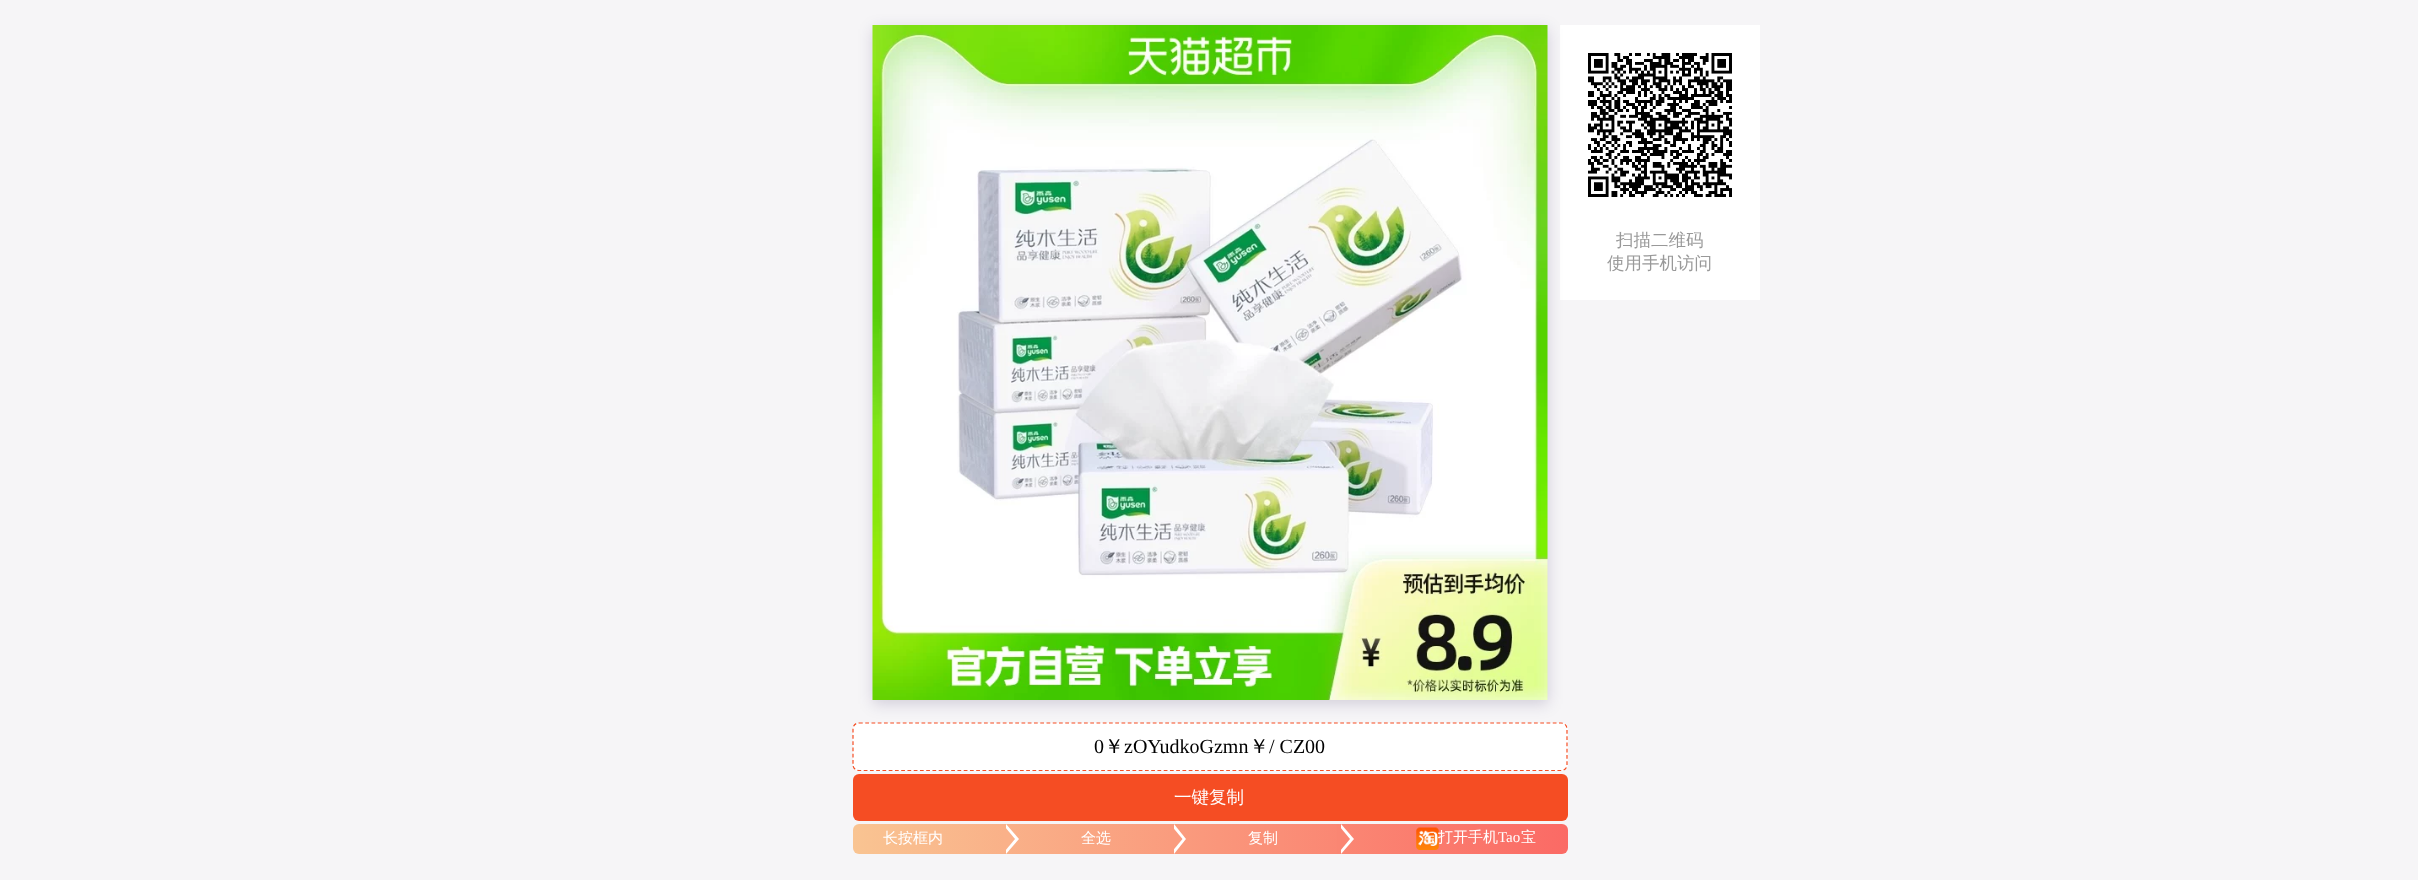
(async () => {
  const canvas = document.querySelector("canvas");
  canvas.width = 2418;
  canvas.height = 880;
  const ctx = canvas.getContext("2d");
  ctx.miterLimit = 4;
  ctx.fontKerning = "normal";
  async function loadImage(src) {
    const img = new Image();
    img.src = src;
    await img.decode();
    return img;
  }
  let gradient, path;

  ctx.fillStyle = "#f6f5f7";
  ctx.fillRect(0, 0, 2418, 880);
  ctx.fillStyle = "#ffffff";
  ctx.fillRect(1560, 25, 200, 275);
  ctx.drawImage(await loadImage("img/1.png"), 1588, 53, 144, 144);
  ctx.beginPath();
  ctx.roundRect(853, 723, 715, 48, 6);
  ctx.fill();
  path = new Path2D("M859 723H1561C1564.5 723 1567 725.5 1567 729V765C1567 768 1564.5 770.5 1561 770.5H859C855.5 770.5 853 768 853 765V729C853 725.5 855.5 723 859 723Z");
  ctx.strokeStyle = "#f54d23";
  ctx.lineWidth = 1.2;
  ctx.setLineDash([3.75, 2.5]);
  ctx.stroke(path);
  ctx.fillStyle = "rgba(21, 0, 71, 0.16)";
  ctx.filter = "blur(7.5px)";
  ctx.beginPath();
  ctx.rect(873, 29, 675, 675);
  ctx.fill();
  ctx.filter = "none";
  ctx.drawImage(await loadImage("img/2.png"), 872, 25, 676, 675);
  ctx.fillStyle = "#f54d23";
  ctx.beginPath();
  ctx.roundRect(853, 774, 715, 47, 6);
  ctx.fill();
  gradient = ctx.createLinearGradient(853, 839, 1568, 839);
  gradient.addColorStop(0, "#f9c492");
  gradient.addColorStop(1, "#fb6a65");
  ctx.fillStyle = gradient;
  ctx.beginPath();
  ctx.roundRect(853, 824, 715, 30, 6);
  ctx.fill();
  ctx.fillStyle = "#ffffff";
  path = new Path2D("M1006 854V824L1019 839Z");
  ctx.fill(path);
  ctx.fillStyle = "#fab189";
  path = new Path2D("M1002.5 854V824L1015 839Z");
  ctx.fill(path);
  ctx.fillStyle = "#ffffff";
  path = new Path2D("M1174 854V824L1186 839Z");
  ctx.fill(path);
  ctx.fillStyle = "#fa9b7e";
  path = new Path2D("M1170 854V824L1182.5 839Z");
  ctx.fill(path);
  ctx.fillStyle = "#ffffff";
  path = new Path2D("M1341 854V824L1354 839Z");
  ctx.fill(path);
  ctx.fillStyle = "#fa8673";
  path = new Path2D("M1337.5 854V824L1350 839Z");
  ctx.fill(path);
  ctx.drawImage(await loadImage("img/3.png"), 1416, 827, 23, 23);
  ctx.font = "500 17.5px WenQuanYi Zen Hei";
  ctx.fillStyle = "#999999";
  ctx.fillText("扫描二维码", 1616, 246);
  ctx.fillText("使用手机访问", 1607, 269);
  ctx.font = "20px Liberation Serif";
  ctx.fillStyle = "#000000";
  ctx.fillText("0", 1094, 753);
  ctx.font = "500 20px WenQuanYi Zen Hei";
  ctx.fillText("￥", 1104, 753);
  ctx.font = "20px Liberation Serif";
  ctx.fillText("zOYudkoGzmn", 1124, 753);
  ctx.font = "500 20px WenQuanYi Zen Hei";
  ctx.fillText("￥", 1249, 753);
  ctx.font = "20px Liberation Serif";
  ctx.fillText("/ CZ00", 1269, 753);
  ctx.font = "500 17.5px WenQuanYi Zen Hei";
  ctx.fillStyle = "#ffffff";
  ctx.fillText("一键复制", 1174, 803);
  ctx.font = "500 15px WenQuanYi Zen Hei";
  for (const [text, x, y] of [
    ["长按框内", 883, 843],
    ["全选", 1081, 843],
    ["复制", 1248, 843],
    ["打开手机", 1438, 842],
  ]) {
    ctx.fillText(text, x, y);
  }
  ctx.font = "15px Liberation Serif";
  ctx.fillText("Tao", 1498, 842);
  ctx.font = "500 15px WenQuanYi Zen Hei";
  ctx.fillText("宝", 1521, 842);
})();
